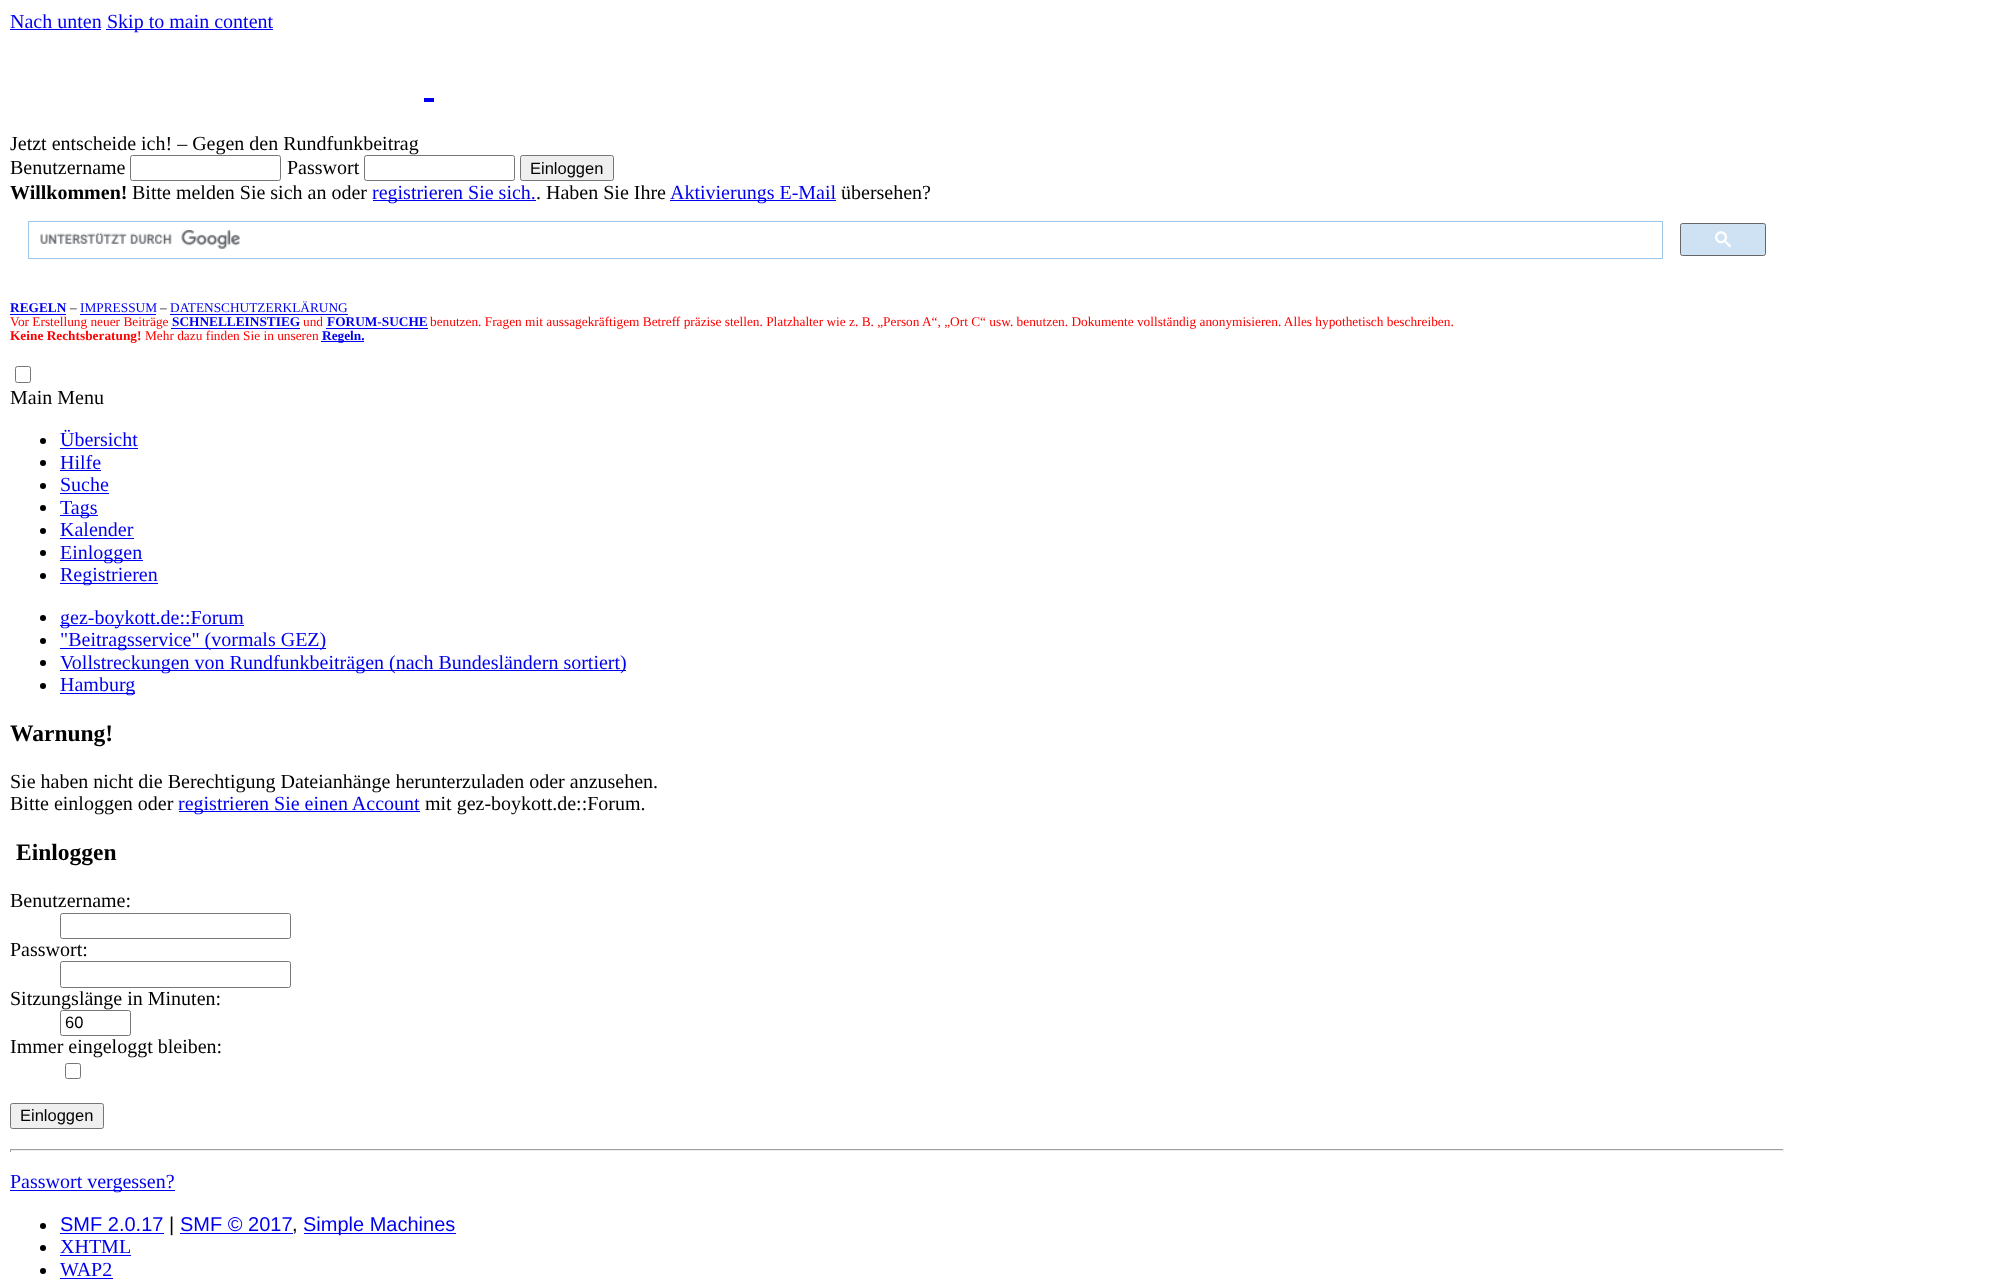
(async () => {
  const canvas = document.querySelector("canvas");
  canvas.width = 1991;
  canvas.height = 1288;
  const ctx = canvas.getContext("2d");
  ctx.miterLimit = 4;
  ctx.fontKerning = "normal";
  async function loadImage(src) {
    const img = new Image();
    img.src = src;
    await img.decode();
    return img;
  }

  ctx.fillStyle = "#ffffff";
  ctx.fillRect(0, 0, 1991, 1288);
  for (const [x, y, w, h, color] of [
    [10, 29, 91, 1, "#0000ee"],
    [106, 29, 167, 1, "#0000ee"],
    [424, 98, 10, 4, "#0000ee"],
  ]) {
    ctx.fillStyle = color;
    ctx.fillRect(x, y, w, h);
  }
  ctx.beginPath();
  ctx.roundRect(130.5, 155.5, 150, 25, 2);
  ctx.strokeStyle = "#767676";
  ctx.stroke();
  ctx.beginPath();
  ctx.roundRect(364.5, 155.5, 150, 25, 2);
  ctx.stroke();
  ctx.fillStyle = "#efefef";
  ctx.beginPath();
  ctx.roundRect(520.5, 155.5, 93, 25, 2);
  ctx.fill();
  ctx.stroke();
  ctx.fillStyle = "#0000ee";
  ctx.fillRect(373, 200, 163, 1);
  ctx.fillRect(670, 200, 166, 1);
  ctx.strokeStyle = "#9fc5e8";
  ctx.strokeRect(28.5, 221.5, 1634, 37);
  ctx.drawImage(await loadImage("img/1.png"), 40, 230, 200, 19);
  ctx.fillStyle = "#cfe2f3";
  ctx.beginPath();
  ctx.roundRect(1680.5, 223.5, 85, 32, 2);
  ctx.fill();
  ctx.strokeStyle = "#666666";
  ctx.stroke();
  ctx.drawImage(await loadImage("img/2.png"), 1715, 231, 16, 17);
  for (const [x, y, w, h, color] of [
    [10, 314, 56, 1, "#0000ee"],
    [80, 314, 76, 1, "#0000ee"],
    [170, 314, 178, 1, "#0000ee"],
    [171, 328, 129, 1, "#0000ee"],
    [326, 328, 102, 1, "#0000ee"],
    [321, 341, 43, 1, "#0000ee"],
  ]) {
    ctx.fillStyle = color;
    ctx.fillRect(x, y, w, h);
  }
  ctx.beginPath();
  ctx.roundRect(15.5, 366.5, 15, 16, 2);
  ctx.strokeStyle = "#767676";
  ctx.stroke();
  ctx.fillStyle = "#000000";
  ctx.beginPath();
  ctx.arc(43, 441, 3, 0, Math.PI * 2);
  ctx.fill();
  ctx.fillStyle = "#0000ee";
  ctx.fillRect(60, 448, 78, 1);
  ctx.fillStyle = "#000000";
  ctx.beginPath();
  ctx.arc(43, 463, 3, 0, Math.PI * 2);
  ctx.fill();
  ctx.fillStyle = "#0000ee";
  ctx.fillRect(60, 470, 41, 1);
  ctx.fillStyle = "#000000";
  ctx.beginPath();
  ctx.arc(43, 486, 3, 0, Math.PI * 2);
  ctx.fill();
  ctx.fillStyle = "#0000ee";
  ctx.fillRect(60, 493, 49, 1);
  ctx.fillStyle = "#000000";
  ctx.beginPath();
  ctx.arc(43, 508, 3, 0, Math.PI * 2);
  ctx.fill();
  ctx.fillStyle = "#0000ee";
  ctx.fillRect(60, 515, 38, 1);
  ctx.fillStyle = "#000000";
  ctx.beginPath();
  ctx.arc(43, 531, 3, 0, Math.PI * 2);
  ctx.fill();
  ctx.fillStyle = "#0000ee";
  ctx.fillRect(60, 538, 74, 1);
  ctx.fillStyle = "#000000";
  ctx.beginPath();
  ctx.arc(43, 553, 3, 0, Math.PI * 2);
  ctx.fill();
  ctx.fillStyle = "#0000ee";
  ctx.fillRect(60, 560, 83, 1);
  ctx.fillStyle = "#000000";
  ctx.beginPath();
  ctx.arc(43, 576, 3, 0, Math.PI * 2);
  ctx.fill();
  ctx.fillStyle = "#0000ee";
  ctx.fillRect(60, 583, 98, 1);
  ctx.fillStyle = "#000000";
  ctx.beginPath();
  ctx.arc(43, 618, 3, 0, Math.PI * 2);
  ctx.fill();
  ctx.fillStyle = "#0000ee";
  ctx.fillRect(60, 625, 184, 1);
  ctx.fillStyle = "#000000";
  ctx.beginPath();
  ctx.arc(43, 641, 3, 0, Math.PI * 2);
  ctx.fill();
  ctx.fillStyle = "#0000ee";
  ctx.fillRect(60, 648, 266, 1);
  ctx.fillStyle = "#000000";
  ctx.beginPath();
  ctx.arc(43, 663, 3, 0, Math.PI * 2);
  ctx.fill();
  ctx.fillStyle = "#0000ee";
  ctx.fillRect(60, 670, 566, 1);
  ctx.fillStyle = "#000000";
  ctx.beginPath();
  ctx.arc(43, 686, 3, 0, Math.PI * 2);
  ctx.fill();
  ctx.fillStyle = "#0000ee";
  ctx.fillRect(60, 693, 75, 1);
  ctx.fillRect(179, 811, 241, 1);
  ctx.beginPath();
  ctx.roundRect(60.5, 913.5, 230, 25, 2);
  ctx.stroke();
  ctx.beginPath();
  ctx.roundRect(60.5, 961.5, 230, 26, 2);
  ctx.stroke();
  ctx.beginPath();
  ctx.roundRect(60.5, 1010.5, 70, 25, 2);
  ctx.stroke();
  ctx.beginPath();
  ctx.roundRect(65.5, 1063.5, 15, 15, 2);
  ctx.stroke();
  ctx.fillStyle = "#efefef";
  ctx.beginPath();
  ctx.roundRect(10.5, 1103.5, 93, 25, 2);
  ctx.fill();
  ctx.stroke();
  for (const [x, y, w, h, color] of [
    [10, 1149, 1774, 1, "#9f9f9f"],
    [1783, 1149, 1, 3, "#eeeeee"],
    [10, 1150, 1774, 1, "#eeeeee"],
    [10, 1149, 1, 3, "#9f9f9f"],
    [10, 1190, 165, 1, "#0000ee"],
  ]) {
    ctx.fillStyle = color;
    ctx.fillRect(x, y, w, h);
  }
  ctx.fillStyle = "#000000";
  ctx.beginPath();
  ctx.arc(43, 1226, 3, 0, Math.PI * 2);
  ctx.fill();
  for (const [x, y, w, h, color] of [
    [60, 1233, 104, 1, "#0000ee"],
    [180, 1233, 113, 1, "#0000ee"],
    [304, 1233, 152, 1, "#0000ee"],
  ]) {
    ctx.fillStyle = color;
    ctx.fillRect(x, y, w, h);
  }
  ctx.fillStyle = "#000000";
  ctx.beginPath();
  ctx.arc(43, 1248, 3, 0, Math.PI * 2);
  ctx.fill();
  ctx.fillStyle = "#0000ee";
  ctx.fillRect(60, 1255, 71, 1);
  ctx.fillStyle = "#000000";
  ctx.beginPath();
  ctx.arc(43, 1271, 3, 0, Math.PI * 2);
  ctx.fill();
  ctx.fillStyle = "#0000ee";
  ctx.fillRect(60, 1278, 53, 1);
  ctx.font = "20px Liberation Serif";
  ctx.fillText("Nach unten", 10, 28);
  ctx.fillText("Skip to main content", 107, 28);
  ctx.fillStyle = "#000000";
  for (const [text, x, y] of [
    ["Jetzt entscheide ich! – Gegen den Rundfunkbeitrag", 10, 150],
    ["Benutzername", 10, 174],
    ["Passwort", 287, 174],
  ]) {
    ctx.fillText(text, x, y);
  }
  ctx.font = "16.5px Liberation Sans";
  ctx.fillText("Einloggen", 530, 174);
  ctx.font = "bold 20px Liberation Serif";
  ctx.fillText("Willkommen!", 10, 199);
  ctx.font = "20px Liberation Serif";
  ctx.fillText("Bitte melden Sie sich an oder", 132, 199);
  ctx.fillStyle = "#0000ee";
  ctx.fillText("registrieren Sie sich.", 372, 199);
  ctx.fillStyle = "#000000";
  ctx.fillText(". Haben Sie Ihre", 536, 199);
  ctx.fillStyle = "#0000ee";
  ctx.fillText("Aktivierungs E-Mail", 670, 199);
  ctx.fillStyle = "#000000";
  ctx.fillText("übersehen?", 841, 199);
  ctx.font = "bold 13.33px Liberation Serif";
  ctx.fillStyle = "#0000ee";
  ctx.fillText("REGELN", 10, 312);
  ctx.font = "13.33px Liberation Serif";
  ctx.fillStyle = "#000000";
  ctx.fillText("–", 70, 312);
  ctx.fillStyle = "#0000ee";
  ctx.fillText("IMPRESSUM", 80, 312);
  ctx.fillStyle = "#000000";
  ctx.fillText("–", 160, 312);
  ctx.fillStyle = "#0000ee";
  ctx.fillText("DATENSCHUTZERKLÄRUNG", 170, 312);
  ctx.fillStyle = "#ff0000";
  ctx.fillText("Vor Erstellung neuer Beiträge", 10, 326);
  ctx.font = "bold 13.33px Liberation Serif";
  ctx.fillStyle = "#0000ee";
  ctx.fillText("SCHNELLEINSTIEG", 172, 326);
  ctx.font = "13.33px Liberation Serif";
  ctx.fillStyle = "#ff0000";
  ctx.fillText("und", 303, 326);
  ctx.font = "bold 13.33px Liberation Serif";
  ctx.fillStyle = "#0000ee";
  ctx.fillText("FORUM-SUCHE", 327, 326);
  ctx.font = "13.33px Liberation Serif";
  ctx.fillStyle = "#ff0000";
  ctx.fillText("benutzen. Fragen mit aussagekräftigem Betreff präzise stellen. Platzhalter wie z. B. „Person A“, „Ort C“ usw. benutzen. Dokumente vollständig anonymisieren. Alles hypothetisch beschreiben.", 430, 326);
  ctx.font = "bold 13.33px Liberation Serif";
  ctx.fillText("Keine Rechtsberatung!", 10, 340);
  ctx.font = "13.33px Liberation Serif";
  ctx.fillText("Mehr dazu finden Sie in unseren", 145, 340);
  ctx.font = "bold 13.33px Liberation Serif";
  ctx.fillStyle = "#0000ee";
  ctx.fillText("Regeln.", 322, 340);
  ctx.font = "20px Liberation Serif";
  ctx.fillStyle = "#000000";
  ctx.fillText("Main Menu", 10, 404);
  ctx.fillStyle = "#0000ee";
  for (const [text, x, y] of [
    ["Übersicht", 60, 446],
    ["Hilfe", 60, 469],
    ["Suche", 60, 491],
    ["Tags", 60, 514],
    ["Kalender", 60, 536],
    ["Einloggen", 60, 559],
    ["Registrieren", 60, 581],
    ["gez-boykott.de::Forum", 60, 624],
    ["\"Beitragsservice\" (vormals GEZ)", 60, 646],
    ["Vollstreckungen von Rundfunkbeiträgen (nach Bundesländern sortiert)", 60, 669],
    ["Hamburg", 60, 691],
  ]) {
    ctx.fillText(text, x, y);
  }
  ctx.font = "bold 23.5px Liberation Serif";
  ctx.fillStyle = "#000000";
  ctx.fillText("Warnung!", 10, 741);
  ctx.font = "20px Liberation Serif";
  ctx.fillText("Sie haben nicht die Berechtigung Dateianhänge herunterzuladen oder anzusehen.", 10, 788);
  ctx.fillText("Bitte einloggen oder", 10, 810);
  ctx.fillStyle = "#0000ee";
  ctx.fillText("registrieren Sie einen Account", 178, 810);
  ctx.fillStyle = "#000000";
  ctx.fillText("mit gez-boykott.de::Forum.", 425, 810);
  ctx.font = "bold 23.5px Liberation Serif";
  ctx.fillText("Einloggen", 16, 860);
  ctx.font = "20px Liberation Serif";
  for (const [text, x, y] of [
    ["Benutzername:", 10, 907],
    ["Passwort:", 10, 956],
    ["Sitzungslänge in Minuten:", 10, 1005],
  ]) {
    ctx.fillText(text, x, y);
  }
  ctx.font = "16.5px Liberation Sans";
  ctx.fillText("60", 65, 1028);
  ctx.font = "20px Liberation Serif";
  ctx.fillText("Immer eingeloggt bleiben:", 10, 1053);
  ctx.font = "16.5px Liberation Sans";
  ctx.fillText("Einloggen", 20, 1121);
  ctx.font = "20px Liberation Serif";
  ctx.fillStyle = "#0000ee";
  ctx.fillText("Passwort vergessen?", 10, 1188);
  ctx.font = "20px Liberation Sans";
  ctx.fillText("SMF 2.0.17", 60, 1231);
  ctx.fillStyle = "#000000";
  ctx.fillText("|", 169, 1231);
  ctx.fillStyle = "#0000ee";
  ctx.fillText("SMF © 2017", 180, 1231);
  ctx.fillText("Simple Machines", 303, 1231);
  ctx.fillStyle = "#000000";
  ctx.fillText(",", 292, 1231);
  ctx.font = "20px Liberation Serif";
  ctx.fillStyle = "#0000ee";
  ctx.fillText("XHTML", 60, 1253);
  ctx.fillText("WAP2", 60, 1276);
})();
